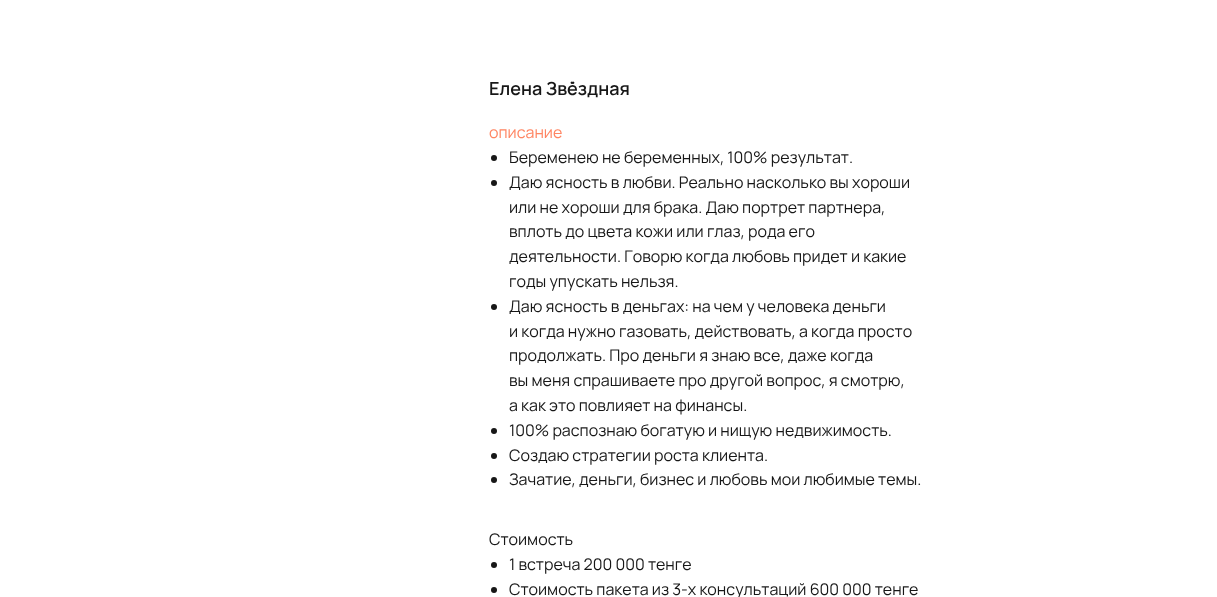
(async () => {
  const canvas = document.querySelector("canvas");
  canvas.width = 1217;
  canvas.height = 597;
  const ctx = canvas.getContext("2d");
  ctx.miterLimit = 4;
  ctx.fontKerning = "none";

  ctx.fillStyle = "#ffffff";
  ctx.fillRect(0, 0, 1217, 597);
  ctx.fillStyle = "#171717";
  ctx.beginPath();
  ctx.arc(494, 158, 3, 0, Math.PI * 2);
  ctx.fill();
  ctx.beginPath();
  ctx.arc(494, 183, 3, 0, Math.PI * 2);
  ctx.fill();
  ctx.beginPath();
  ctx.arc(494, 307, 3, 0, Math.PI * 2);
  ctx.fill();
  ctx.beginPath();
  ctx.arc(494, 431, 3, 0, Math.PI * 2);
  ctx.fill();
  ctx.beginPath();
  ctx.arc(494, 456, 3, 0, Math.PI * 2);
  ctx.fill();
  ctx.beginPath();
  ctx.arc(494, 480, 3, 0, Math.PI * 2);
  ctx.fill();
  ctx.beginPath();
  ctx.arc(494, 565, 3, 0, Math.PI * 2);
  ctx.fill();
  ctx.beginPath();
  ctx.arc(494, 590, 3, 0, Math.PI * 2);
  ctx.fill();
  ctx.font = "600 18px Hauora";
  ctx.fillText("Елена Звёздная", 489, 95);
  ctx.font = "16px Hauora";
  ctx.fillStyle = "#ff8562";
  ctx.fillText("описание", 489, 138);
  ctx.fillStyle = "#171717";
  for (const [text, x, y] of [
    ["Беременею не беременных, 100% результат.", 509, 163],
    ["Даю ясность в любви. Реально насколько вы хороши", 509, 188],
    ["или не хороши для брака. Даю портрет партнера,", 509, 213],
    ["вплоть до цвета кожи или глаз, рода его", 509, 237],
    ["деятельности. Говорю когда любовь придет и какие", 509, 262],
    ["годы упускать нельзя.", 509, 287],
    ["Даю ясность в деньгах: на чем у человека деньги", 509, 312],
    ["и когда нужно газовать, действовать, а когда просто", 509, 337],
    ["продолжать. Про деньги я знаю все, даже когда", 509, 361],
    ["вы меня спрашиваете про другой вопрос, я смотрю,", 509, 386],
    ["а как это повлияет на финансы.", 509, 411],
    ["100% распознаю богатую и нищую недвижимость.", 509, 436],
    ["Создаю стратегии роста клиента.", 509, 461],
    ["Зачатие, деньги, бизнес и любовь мои любимые темы.", 509, 485],
    ["Стоимость", 489, 545],
    ["1 встреча 200 000 тенге", 509, 570],
    ["Стоимость пакета из 3-х консультаций 600 000 тенге", 509, 595],
  ]) {
    ctx.fillText(text, x, y);
  }
})();
